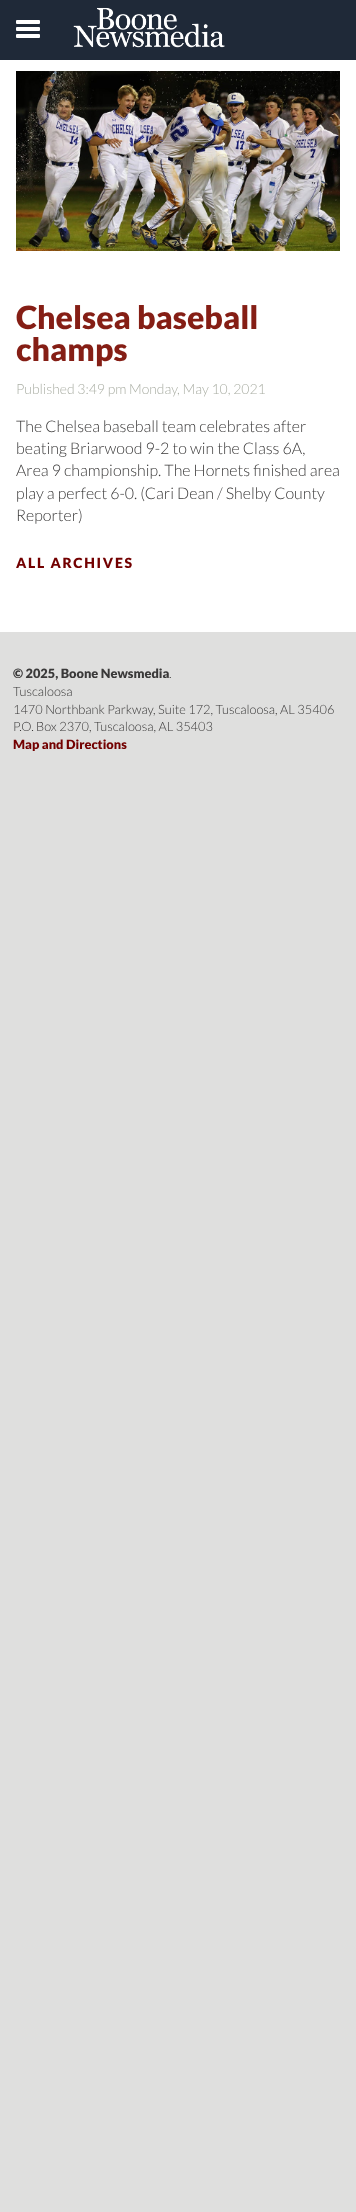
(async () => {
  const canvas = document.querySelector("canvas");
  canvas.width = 356;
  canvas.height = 2212;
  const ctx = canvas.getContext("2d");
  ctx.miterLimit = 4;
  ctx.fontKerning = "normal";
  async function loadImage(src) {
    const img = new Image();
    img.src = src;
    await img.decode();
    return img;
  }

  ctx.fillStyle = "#dfdfde";
  ctx.fillRect(0, 0, 356, 2212);
  ctx.fillStyle = "#1f2938";
  ctx.fillRect(0, 0, 356, 60);
  ctx.fillStyle = "#ffffff";
  ctx.beginPath();
  ctx.roundRect(16, 20, 24, 4, 1);
  ctx.fill();
  ctx.beginPath();
  ctx.roundRect(16, 27, 24, 4, 1);
  ctx.fill();
  ctx.beginPath();
  ctx.roundRect(16, 34, 24, 4, 1);
  ctx.fill();
  ctx.drawImage(await loadImage("img/1.png"), 73, 7, 152, 41);
  ctx.fillRect(0, 60, 356, 572);
  ctx.drawImage(await loadImage("img/2.png"), 16, 71, 324, 180);
  ctx.font = "900 32px Lato";
  ctx.fillStyle = "#851e15";
  ctx.fillText("Chelsea baseball", 16, 329);
  ctx.fillText("champs", 16, 361);
  ctx.font = "300 14px Lato";
  ctx.fillStyle = "#abafa5";
  ctx.fillText("Published 3:49 pm Monday, May 10, 2021", 16, 394);
  ctx.font = "300 16px Lato";
  ctx.fillStyle = "#3a3939";
  for (const [text, x, y] of [
    ["The Chelsea baseball team celebrates after", 16, 432],
    ["beating Briarwood 9-2 to win the Class 6A,", 16, 454],
    ["Area 9 championship. The Hornets finished area", 16, 476],
    ["play a perfect 6-0. (Cari Dean / Shelby County", 16, 499],
    ["Reporter)", 16, 521],
  ]) {
    ctx.fillText(text, x, y);
  }
  ctx.letterSpacing = "1.75px";
  ctx.font = "900 14px Lato";
  ctx.fillStyle = "#730000";
  ctx.fillText("ALL ARCHIVES", 16, 568);
  ctx.letterSpacing = "0px";
  ctx.font = "900 12.8px Lato";
  ctx.fillStyle = "#3a3939";
  ctx.fillText("© 2025, Boone Newsmedia", 13, 678);
  ctx.font = "300 12.8px Lato";
  for (const [text, x, y] of [
    [".", 169, 678],
    ["Tuscaloosa", 13, 696],
    ["1470 Northbank Parkway, Suite 172, Tuscaloosa, AL 35406", 13, 714],
    ["P.O. Box 2370, Tuscaloosa, AL 35403", 13, 731],
  ]) {
    ctx.fillText(text, x, y);
  }
  ctx.font = "900 12.8px Lato";
  ctx.fillStyle = "#730000";
  ctx.fillText("Map and Directions", 13, 749);
})();
